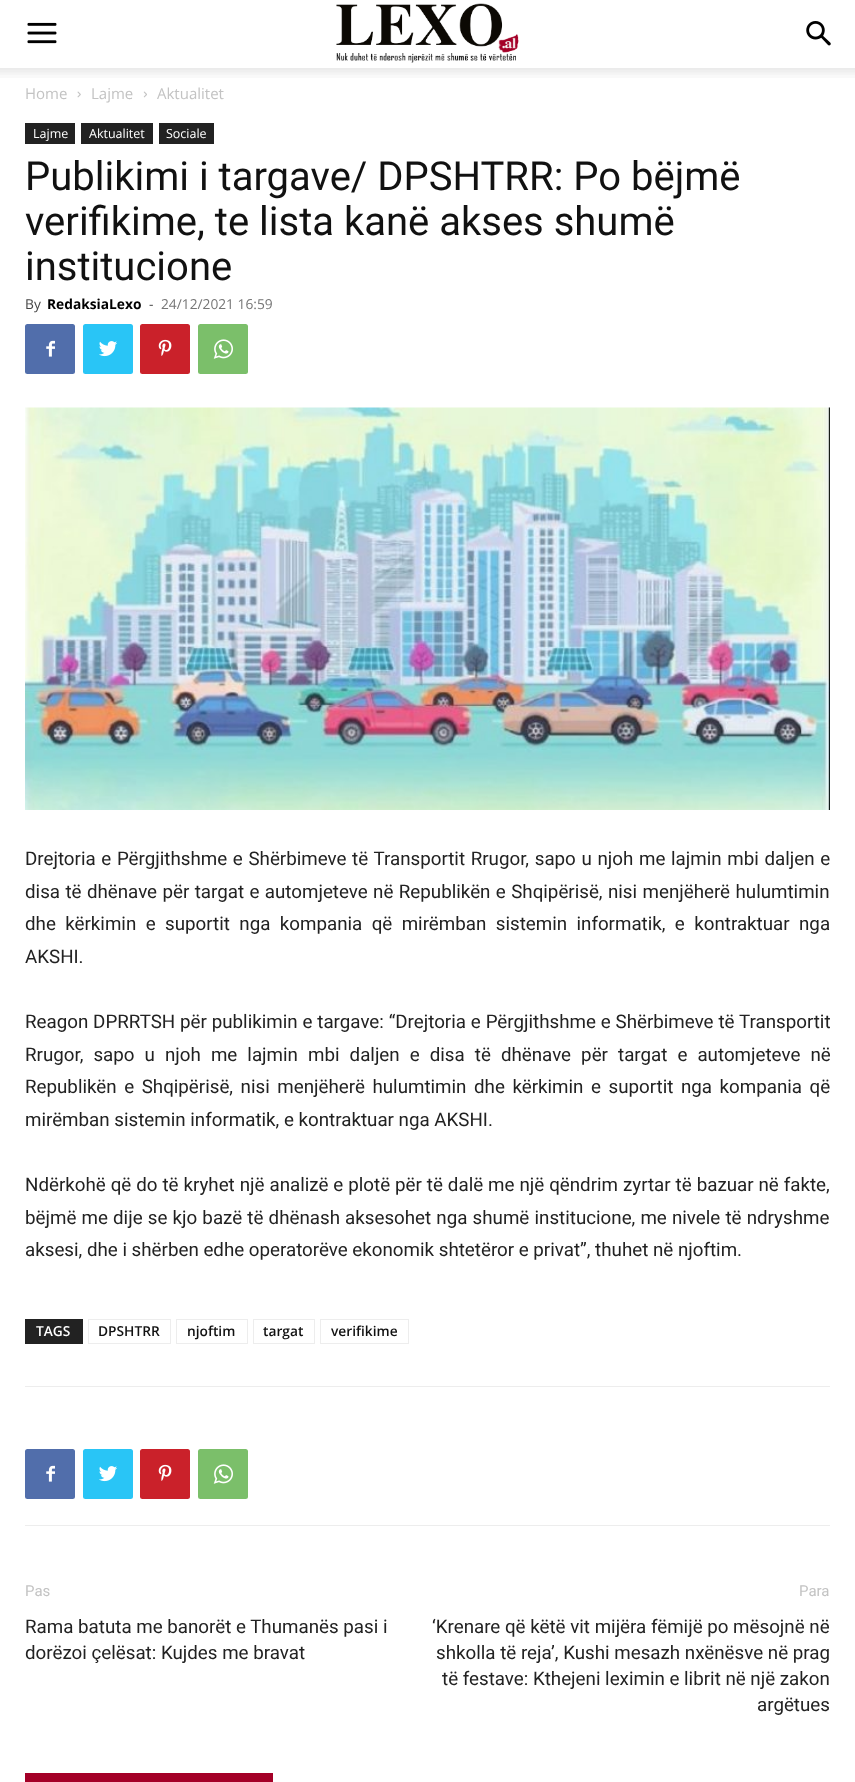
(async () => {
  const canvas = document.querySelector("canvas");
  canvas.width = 855;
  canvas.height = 1782;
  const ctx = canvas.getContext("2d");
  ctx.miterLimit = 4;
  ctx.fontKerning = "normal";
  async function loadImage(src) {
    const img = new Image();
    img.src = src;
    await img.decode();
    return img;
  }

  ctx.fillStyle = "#ffffff";
  ctx.fillRect(0, 0, 855, 1782);
  ctx.drawImage(await loadImage("img/1.png"), 27, 22, 30, 22);
  ctx.drawImage(await loadImage("img/2.png"), 336, 3, 183, 60);
  ctx.drawImage(await loadImage("img/3.png"), 806, 21, 25, 25);
  ctx.drawImage(await loadImage("img/4.png"), 0, 68, 855, 10);
  ctx.drawImage(await loadImage("img/5.png"), 77, 91, 4, 7);
  ctx.drawImage(await loadImage("img/6.png"), 143, 91, 4, 7);
  for (const [x, y, w, h, color] of [
    [25, 123, 50, 21, "#222222"],
    [81, 123, 72, 21, "#222222"],
    [159, 123, 55, 21, "#222222"],
  ]) {
    ctx.fillStyle = color;
    ctx.fillRect(x, y, w, h);
  }
  ctx.fillStyle = "#516eab";
  ctx.beginPath();
  ctx.roundRect(25, 324, 50, 50, 2.5);
  ctx.fill();
  ctx.drawImage(await loadImage("img/7.png"), 46, 340, 9, 17);
  ctx.fillStyle = "#29c5f6";
  ctx.beginPath();
  ctx.roundRect(83, 324, 50, 50, 2.5);
  ctx.fill();
  ctx.drawImage(await loadImage("img/8.png"), 99, 341, 18, 16);
  ctx.fillStyle = "#ca212a";
  ctx.beginPath();
  ctx.roundRect(140, 324, 50, 50, 2.5);
  ctx.fill();
  ctx.drawImage(await loadImage("img/9.png"), 158, 339, 14, 17);
  ctx.fillStyle = "#7bbf6a";
  ctx.beginPath();
  ctx.roundRect(198, 324, 50, 50, 2.5);
  ctx.fill();
  ctx.drawImage(await loadImage("img/10.png"), 213, 339, 20, 20);
  ctx.drawImage(await loadImage("img/11.png"), 25, 407, 805, 403);
  ctx.fillStyle = "#222222";
  ctx.fillRect(25, 1319, 58, 25);
  ctx.strokeStyle = "#ededed";
  ctx.strokeRect(88.5, 1319.5, 82, 24);
  ctx.strokeRect(176.5, 1319.5, 71, 24);
  ctx.strokeRect(253.5, 1319.5, 61, 24);
  ctx.strokeRect(320.5, 1319.5, 88, 24);
  ctx.fillStyle = "#ededed";
  ctx.fillRect(25, 1386, 805, 1);
  ctx.fillRect(25, 1525, 805, 1);
  ctx.fillStyle = "#516eab";
  ctx.beginPath();
  ctx.roundRect(25, 1449, 50, 50, 2.5);
  ctx.fill();
  ctx.drawImage(await loadImage("img/7.png"), 46, 1465, 9, 17);
  ctx.fillStyle = "#29c5f6";
  ctx.beginPath();
  ctx.roundRect(83, 1449, 50, 50, 2.5);
  ctx.fill();
  ctx.drawImage(await loadImage("img/8.png"), 99, 1466, 18, 16);
  ctx.fillStyle = "#ca212a";
  ctx.beginPath();
  ctx.roundRect(140, 1449, 50, 50, 2.5);
  ctx.fill();
  ctx.drawImage(await loadImage("img/9.png"), 158, 1464, 14, 17);
  ctx.fillStyle = "#7bbf6a";
  ctx.beginPath();
  ctx.roundRect(198, 1449, 50, 50, 2.5);
  ctx.fill();
  ctx.drawImage(await loadImage("img/10.png"), 213, 1464, 20, 20);
  ctx.fillStyle = "#a40027";
  ctx.fillRect(25, 1773, 248, 9);
  ctx.font = "15px Open Sans";
  ctx.fillStyle = "#c3c3c3";
  for (const [text, x, y] of [
    ["Home", 25, 99],
    ["Lajme", 91, 99],
    ["Aktualitet", 157, 99],
  ]) {
    ctx.fillText(text, x, y);
  }
  ctx.font = "12.5px Open Sans";
  ctx.fillStyle = "#ffffff";
  for (const [text, x, y] of [
    ["Lajme", 33, 138],
    ["Aktualitet", 89, 138],
    ["Sociale", 166, 138],
  ]) {
    ctx.fillText(text, x, y);
  }
  ctx.font = "40px Roboto";
  ctx.fillStyle = "#111111";
  for (const [text, x, y] of [
    ["Publikimi i targave/ DPSHTRR: Po bëjmë", 25, 190],
    ["verifikime, te lista kanë akses shumë", 25, 235],
    ["institucione", 25, 280],
  ]) {
    ctx.fillText(text, x, y);
  }
  ctx.font = "13.75px Open Sans";
  ctx.fillStyle = "#444444";
  ctx.fillText("By", 25, 309);
  ctx.font = "bold 13.75px Open Sans";
  ctx.fillStyle = "#000000";
  ctx.fillText("RedaksiaLexo", 47, 309);
  ctx.font = "13.75px Open Sans";
  ctx.fillStyle = "#444444";
  ctx.fillText("-", 149, 309);
  ctx.fillStyle = "#767676";
  ctx.fillText("24/12/2021 16:59", 161, 309);
  ctx.wordSpacing = "1px";
  ctx.font = "18.75px Roboto";
  ctx.fillStyle = "#222222";
  ctx.fillText("Drejtoria e Përgjithshme e Shërbimeve të Transportit Rrugor, sapo u njoh me lajmin mbi daljen e", 25, 865);
  ctx.wordSpacing = "0.75px";
  ctx.fillText("disa të dhënave për targat e automjeteve në Republikën e Shqipërisë, nisi menjëherë hulumtimin", 25, 898);
  ctx.wordSpacing = "4.75px";
  ctx.fillText("dhe kërkimin e suportit nga kompania që mirëmban sistemin informatik, e kontraktuar nga", 25, 930);
  ctx.wordSpacing = "0px";
  ctx.fillText("AKSHI.", 25, 963);
  ctx.wordSpacing = "0.2px";
  ctx.fillText("Reagon DPRRTSH për publikimin e targave: “Drejtoria e Përgjithshme e Shërbimeve të Transportit", 25, 1028);
  ctx.wordSpacing = "5.4px";
  ctx.fillText("Rrugor, sapo u njoh me lajmin mbi daljen e disa të dhënave për targat e automjeteve në", 25, 1061);
  ctx.wordSpacing = "2.9px";
  ctx.fillText("Republikën e Shqipërisë, nisi menjëherë hulumtimin dhe kërkimin e suportit nga kompania që", 25, 1093);
  ctx.wordSpacing = "0px";
  ctx.fillText("mirëmban sistemin informatik, e kontraktuar nga AKSHI.", 25, 1126);
  ctx.wordSpacing = "0.3px";
  ctx.fillText("Ndërkohë që do të kryhet një analizë e plotë për të dalë me një qëndrim zyrtar të bazuar në fakte,", 25, 1191);
  ctx.wordSpacing = "0.5px";
  ctx.fillText("bëjmë me dije se kjo bazë të dhënash aksesohet nga shumë institucione, me nivele të ndryshme", 25, 1224);
  ctx.wordSpacing = "0px";
  ctx.fillText("aksesi, dhe i shërben edhe operatorëve ekonomik shtetëror e privat”, thuhet në njoftim.", 25, 1256);
  ctx.font = "600 13.75px Open Sans";
  ctx.fillStyle = "#ffffff";
  ctx.fillText("TAGS", 36, 1336);
  ctx.fillStyle = "#111111";
  for (const [text, x, y] of [
    ["DPSHTRR", 98, 1336],
    ["njoftim", 187, 1336],
    ["targat", 263, 1336],
    ["verifikime", 331, 1336],
  ]) {
    ctx.fillText(text, x, y);
  }
  ctx.font = "15px Roboto";
  ctx.fillStyle = "#c3c3c3";
  ctx.fillText("Pas", 25, 1596);
  ctx.font = "18.75px Roboto";
  ctx.fillStyle = "#222222";
  ctx.fillText("Rama batuta me banorët e Thumanës pasi i", 25, 1633);
  ctx.fillText("dorëzoi çelësat: Kujdes me bravat", 25, 1659);
  ctx.font = "15px Roboto";
  ctx.fillStyle = "#c3c3c3";
  ctx.fillText("Para", 799, 1596);
  ctx.font = "18.75px Roboto";
  ctx.fillStyle = "#222222";
  for (const [text, x, y] of [
    ["‘Krenare që këtë vit mijëra fëmijë po mësojnë në", 432, 1633],
    ["shkolla të reja’, Kushi mesazh nxënësve në prag", 436, 1659],
    ["të festave: Kthejeni leximin e librit në një zakon", 442, 1685],
    ["argëtues", 757, 1711],
  ]) {
    ctx.fillText(text, x, y);
  }
})();
